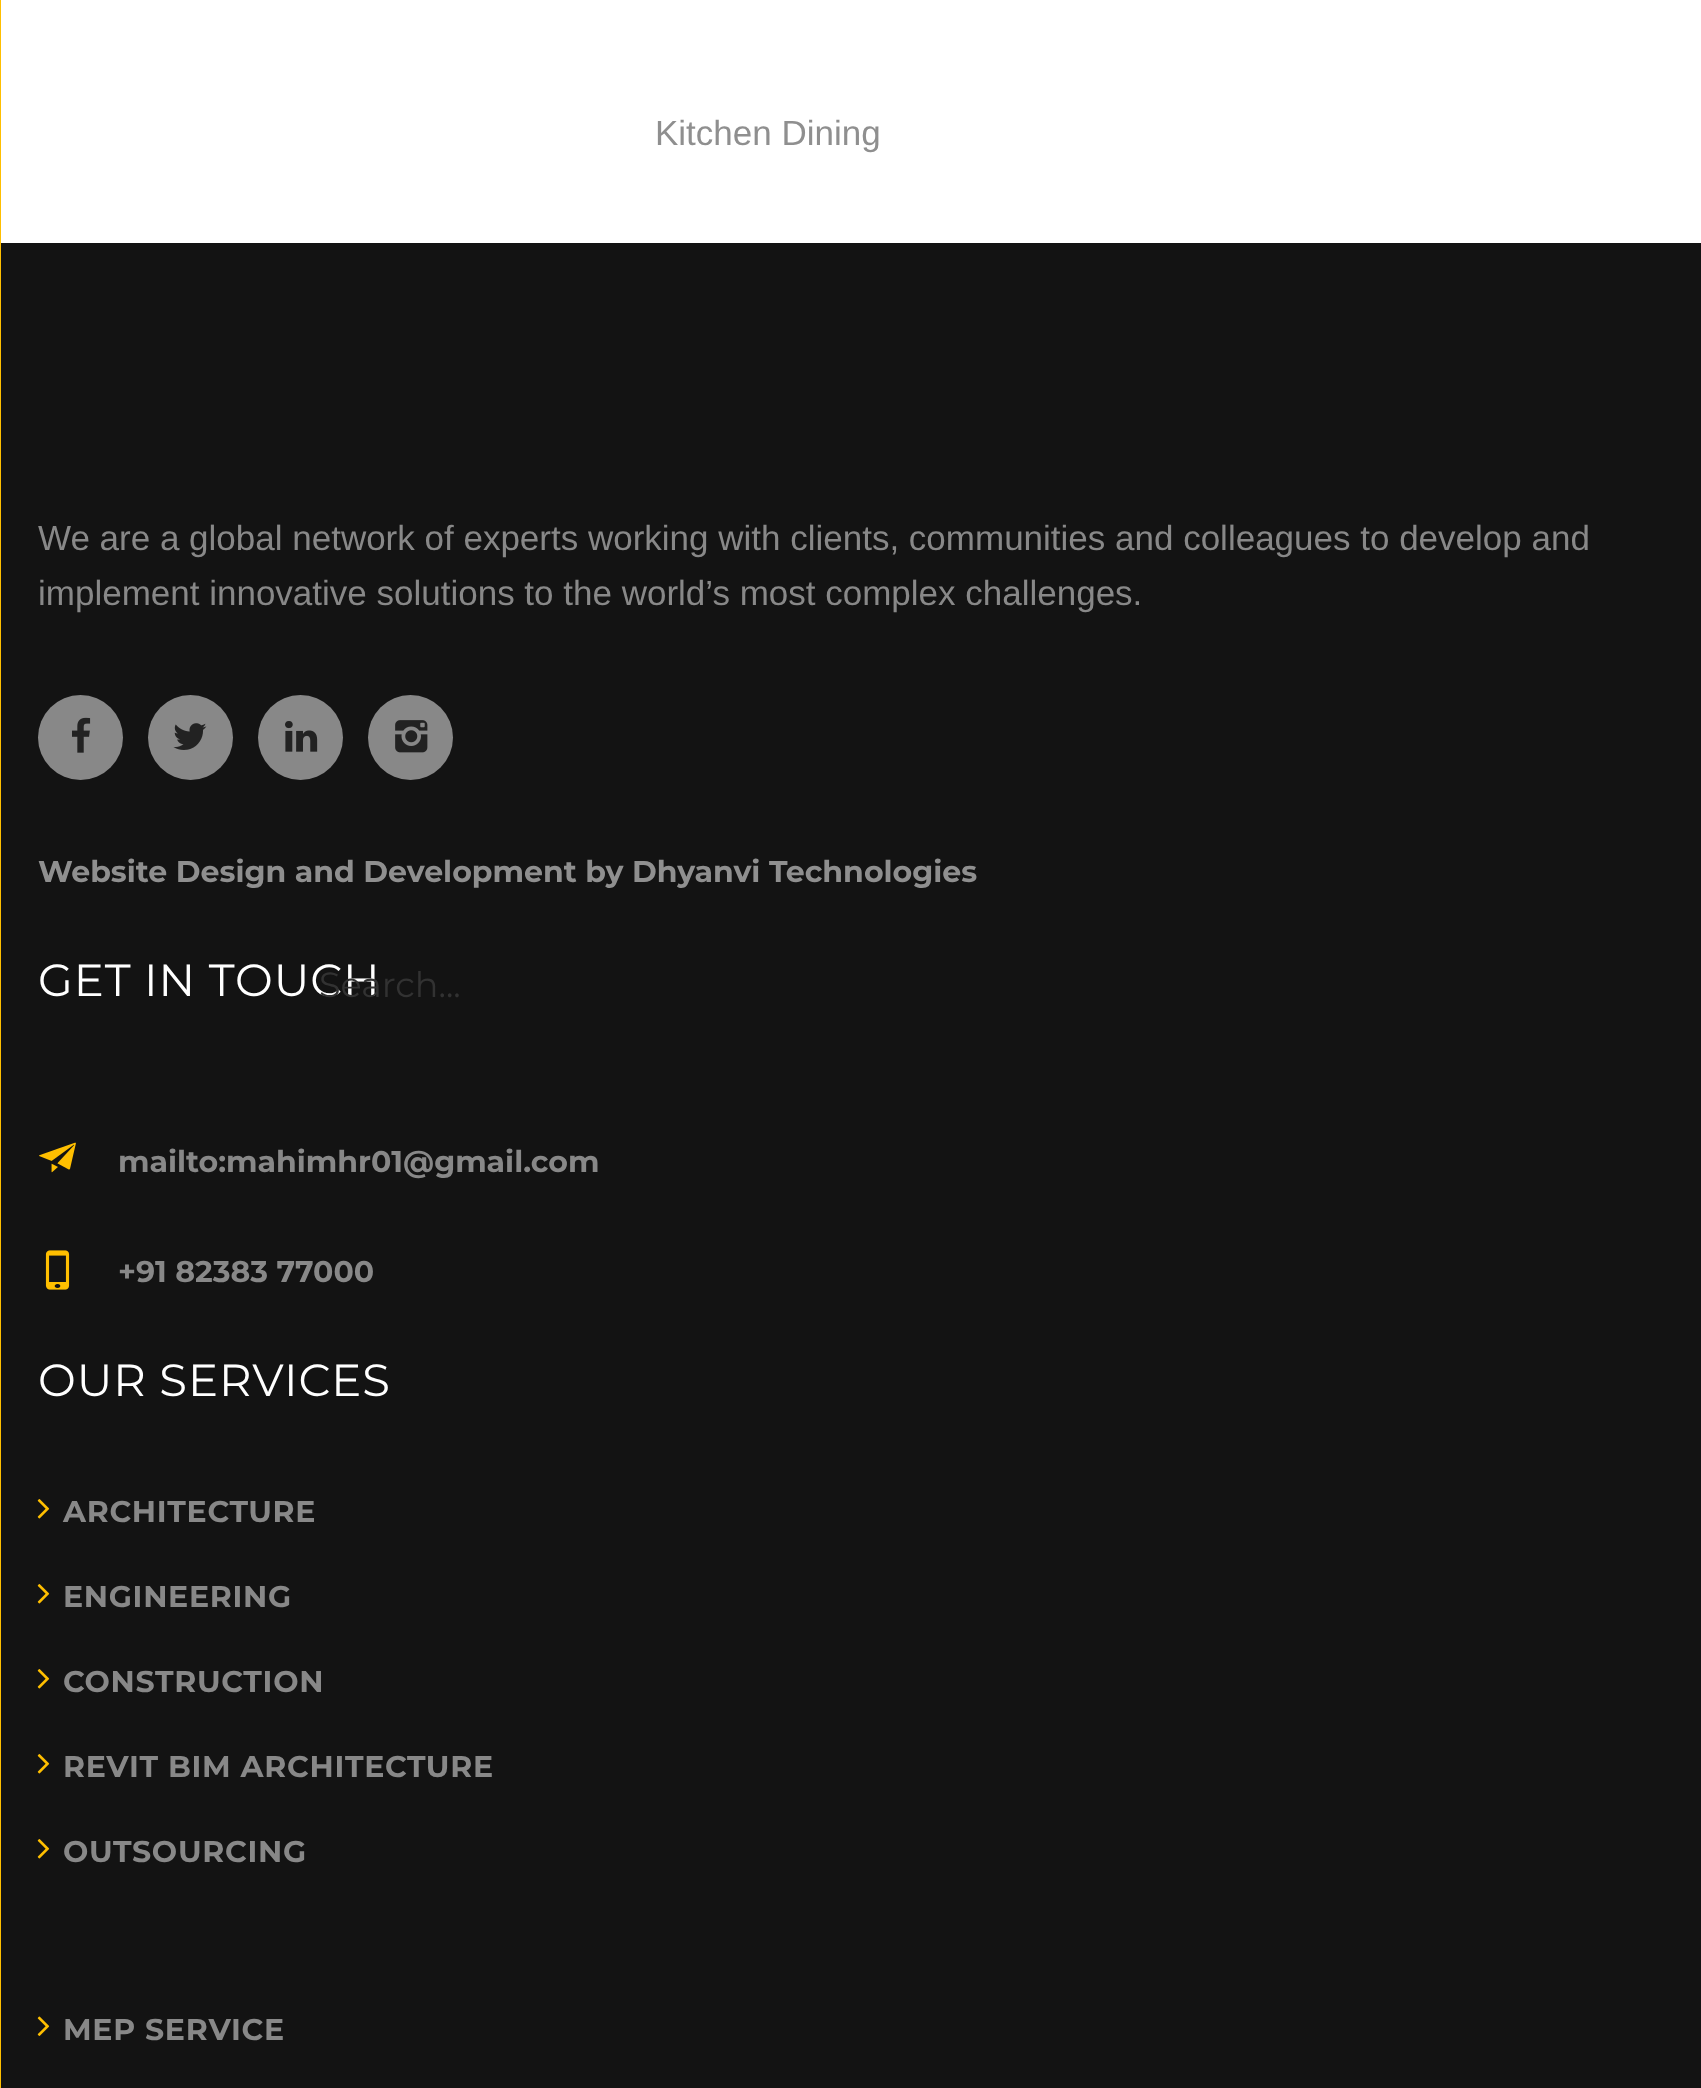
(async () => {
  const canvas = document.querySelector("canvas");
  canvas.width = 1701;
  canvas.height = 2088;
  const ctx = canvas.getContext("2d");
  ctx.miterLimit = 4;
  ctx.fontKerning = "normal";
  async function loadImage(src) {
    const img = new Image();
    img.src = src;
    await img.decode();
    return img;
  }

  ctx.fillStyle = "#ffffff";
  ctx.fillRect(0, 0, 1701, 2088);
  ctx.fillStyle = "#ffbf00";
  ctx.fillRect(0, 0, 1, 2088);
  ctx.fillStyle = "#131313";
  ctx.fillRect(1, 243, 1700, 1845);
  ctx.fillStyle = "#888888";
  ctx.beginPath();
  ctx.arc(80.5, 737.5, 42.5, 0, Math.PI * 2);
  ctx.fill();
  ctx.drawImage(await loadImage("img/1.png"), 72, 717, 19, 36);
  ctx.beginPath();
  ctx.arc(190.5, 737.5, 42.5, 0, Math.PI * 2);
  ctx.fill();
  ctx.drawImage(await loadImage("img/2.png"), 173, 723, 34, 27);
  ctx.beginPath();
  ctx.arc(300.5, 737.5, 42.5, 0, Math.PI * 2);
  ctx.fill();
  ctx.drawImage(await loadImage("img/3.png"), 285, 721, 33, 31);
  ctx.beginPath();
  ctx.arc(410.5, 737.5, 42.5, 0, Math.PI * 2);
  ctx.fill();
  ctx.drawImage(await loadImage("img/4.png"), 395, 720, 33, 33);
  ctx.drawImage(await loadImage("img/5.png"), 39, 1142, 37, 31);
  ctx.drawImage(await loadImage("img/6.png"), 45, 1250, 25, 40);
  ctx.drawImage(await loadImage("img/7.png"), 37, 1499, 13, 20);
  ctx.drawImage(await loadImage("img/7.png"), 37, 1584, 13, 20);
  ctx.drawImage(await loadImage("img/7.png"), 37, 1669, 13, 20);
  ctx.drawImage(await loadImage("img/7.png"), 37, 1754, 13, 20);
  ctx.drawImage(await loadImage("img/7.png"), 37, 1839, 13, 20);
  ctx.drawImage(await loadImage("img/8.png"), 37, 2016, 13, 20);
  ctx.font = "35px Liberation Sans";
  ctx.fillStyle = "#8f8f8f";
  ctx.fillText("Kitchen Dining", 655, 145);
  ctx.fillStyle = "#888888";
  ctx.fillText("We are a global network of experts working with clients, communities and colleagues to develop and", 38, 550);
  ctx.fillText("implement innovative solutions to the world’s most complex challenges.", 38, 605);
  ctx.font = "bold 30px Montserrat";
  ctx.fillStyle = "#8f8f8f";
  ctx.fillText("Website Design and Development by Dhyanvi Technologies", 38, 882);
  ctx.letterSpacing = "0.9px";
  ctx.font = "45px Montserrat";
  ctx.fillStyle = "#ffffff";
  ctx.fillText("GET IN TOUCH", 38, 996);
  ctx.letterSpacing = "0px";
  ctx.font = "bold 30px Montserrat";
  ctx.fillStyle = "#888888";
  ctx.fillText("mailto:mahimhr01@gmail.com", 118, 1172);
  ctx.fillText("+91 82383 77000", 118, 1282);
  ctx.letterSpacing = "0.9px";
  ctx.font = "45px Montserrat";
  ctx.fillStyle = "#ffffff";
  ctx.fillText("OUR SERVICES", 38, 1396);
  ctx.letterSpacing = "0.7px";
  ctx.font = "bold 30px Montserrat";
  ctx.fillStyle = "#888888";
  for (const [text, x, y] of [
    ["ARCHITECTURE", 63, 1522],
    ["ENGINEERING", 63, 1607],
    ["CONSTRUCTION", 63, 1692],
    ["REVIT BIM ARCHITECTURE", 63, 1777],
    ["OUTSOURCING", 63, 1862],
    ["MEP SERVICE", 63, 2040],
  ]) {
    ctx.fillText(text, x, y);
  }
  ctx.letterSpacing = "0px";
  ctx.font = "35px Montserrat";
  ctx.fillStyle = "#323232";
  ctx.fillText("Search...", 319, 997);
})();
